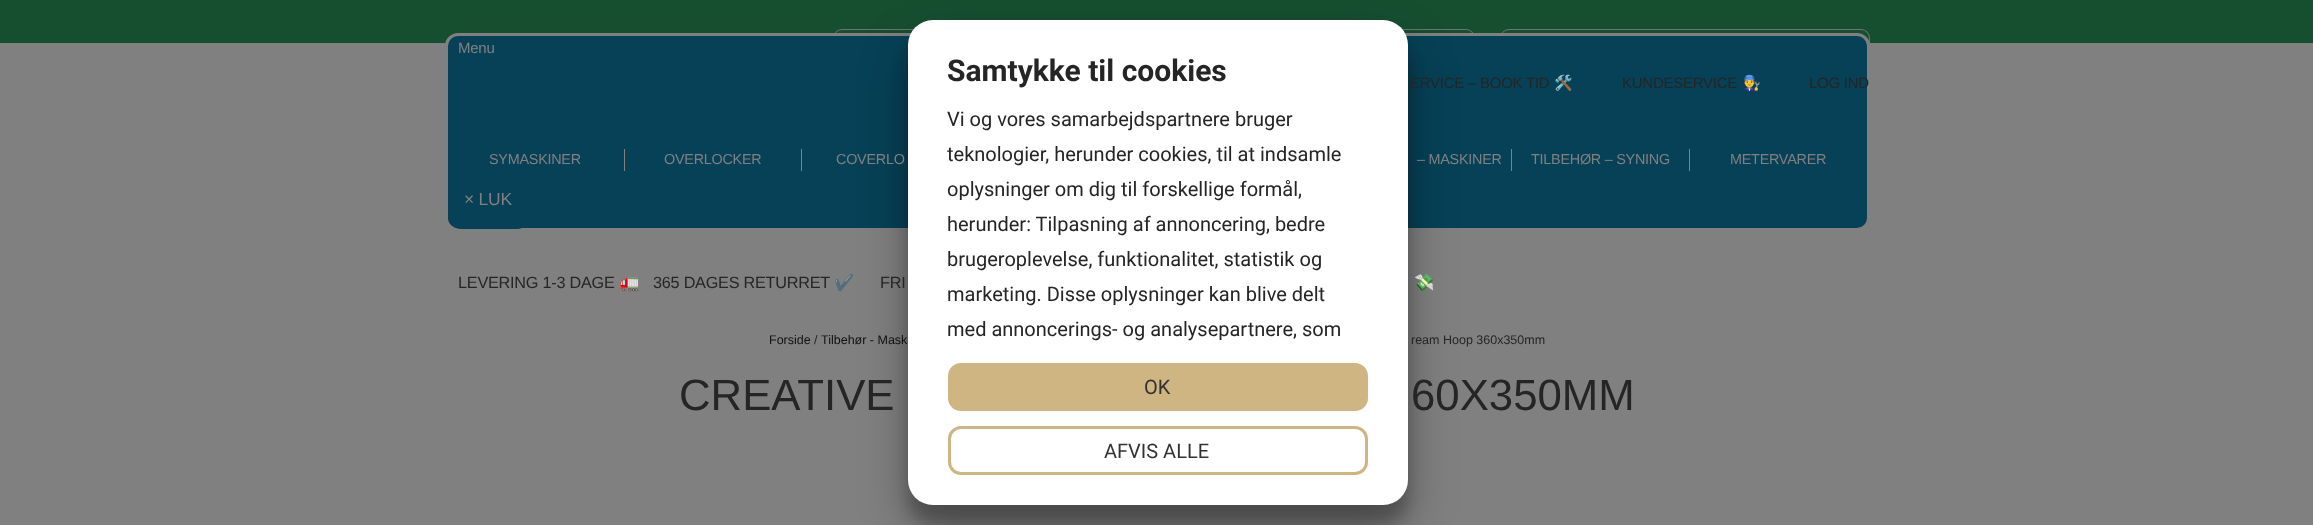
(async () => {
  const canvas = document.querySelector("canvas");
  canvas.width = 2313;
  canvas.height = 525;
  const ctx = canvas.getContext("2d");
  ctx.miterLimit = 4;
  ctx.fontKerning = "normal";

  ctx.fillStyle = "#808080";
  ctx.fillRect(0, 0, 2313, 525);
  ctx.fillStyle = "#154f30";
  ctx.fillRect(0, 0, 2313, 43);
  ctx.beginPath();
  ctx.roundRect(833.5, 29.5, 641, 51, 8.5);
  ctx.strokeStyle = "#717171";
  ctx.stroke();
  ctx.beginPath();
  ctx.roundRect(1500.5, 29.5, 369, 51, 8.5);
  ctx.stroke();
  ctx.fillStyle = "#074157";
  ctx.beginPath();
  ctx.roundRect(446.5, 34.5, 1422, 195, 11.5);
  ctx.fill();
  ctx.strokeStyle = "#808080";
  ctx.lineWidth = 3;
  ctx.stroke();
  for (const [x, y, w, h, color] of [
    [624, 149, 1, 22, "#808080"],
    [801, 149, 1, 22, "#808080"],
    [1511, 149, 1, 22, "#808080"],
    [1689, 149, 1, 22, "#808080"],
  ]) {
    ctx.fillStyle = color;
    ctx.fillRect(x, y, w, h);
  }
  ctx.fillStyle = "#074157";
  ctx.beginPath();
  ctx.roundRect(448, 171, 82, 58, 13);
  ctx.fill();
  ctx.fillStyle = "rgba(0, 0, 0, 0.22)";
  ctx.filter = "blur(7.5px)";
  ctx.beginPath();
  ctx.roundRect(908, 39, 500, 485, 25);
  ctx.fill();
  ctx.filter = "none";
  ctx.fillStyle = "rgba(0, 0, 0, 0.3)";
  ctx.filter = "blur(24px)";
  ctx.beginPath();
  ctx.roundRect(908, 44, 500, 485, 25);
  ctx.fill();
  ctx.filter = "none";
  ctx.fillStyle = "#ffffff";
  ctx.beginPath();
  ctx.roundRect(908, 20, 500, 485, 25);
  ctx.fill();
  ctx.fillStyle = "#ceb582";
  ctx.beginPath();
  ctx.roundRect(949.5, 364.5, 417, 45, 11.5);
  ctx.fill();
  ctx.strokeStyle = "#ceb582";
  ctx.stroke();
  ctx.beginPath();
  ctx.roundRect(949.5, 427.5, 417, 46, 11.5);
  ctx.stroke();
  ctx.letterSpacing = "-0.25px";
  ctx.font = "15px Liberation Sans";
  ctx.fillStyle = "#808080";
  ctx.fillText("Menu", 458, 53);
  ctx.font = "14.4px Liberation Sans";
  for (const [text, x, y] of [
    ["SYMASKINER", 489, 164],
    ["OVERLOCKER", 664, 164],
    ["COVERLO", 836, 164],
    ["– MASKINER", 1417, 164],
    ["TILBEHØR – SYNING", 1531, 164],
    ["METERVARER", 1730, 164],
  ]) {
    ctx.fillText(text, x, y);
  }
  ctx.font = "17.5px Liberation Sans";
  ctx.fillText("× LUK", 464, 205);
  ctx.font = "15px Liberation Sans";
  ctx.fillStyle = "#252525";
  ctx.fillText("ERVICE – BOOK TID", 1410, 88);
  ctx.font = "15px Noto Color Emoji";
  ctx.fillText("🛠️", 1554, 88);
  ctx.font = "15px Liberation Sans";
  ctx.fillText("KUNDESERVICE", 1622, 88);
  ctx.font = "15px Noto Color Emoji";
  ctx.fillText("👨‍🔧", 1742, 88);
  ctx.font = "15px Liberation Sans";
  ctx.fillText("LOG IND", 1809, 88);
  ctx.font = "16.25px Liberation Sans";
  ctx.fillText("LEVERING 1-3 DAGE", 458, 288);
  ctx.font = "16.25px Noto Color Emoji";
  ctx.fillText("🚛", 619, 288);
  ctx.font = "16.25px Liberation Sans";
  ctx.fillText("365 DAGES RETURRET", 653, 288);
  ctx.font = "16.25px Noto Color Emoji";
  ctx.fillText("✔️", 834, 288);
  ctx.font = "16.25px Liberation Sans";
  ctx.fillText("FRI", 880, 288);
  ctx.font = "16.25px Noto Color Emoji";
  ctx.fillText("💸", 1414, 288);
  ctx.letterSpacing = "0px";
  ctx.font = "12.5px Liberation Sans";
  ctx.fillStyle = "#111111";
  ctx.fillText("Forside", 769, 344);
  ctx.fillStyle = "#252525";
  ctx.fillText("/", 814, 344);
  ctx.fillStyle = "#111111";
  ctx.fillText("Tilbehør - Mask", 821, 344);
  ctx.fillStyle = "#252525";
  ctx.fillText("ream Hoop 360x350mm", 1411, 344);
  ctx.font = "43.75px Liberation Sans";
  ctx.fillText("CREATIVE", 679, 410);
  ctx.fillText("60X350MM", 1411, 410);
  ctx.font = "bold 30px Roboto";
  ctx.fillText("Samtykke til cookies", 947, 81);
  ctx.font = "20px Roboto";
  for (const [text, x, y] of [
    ["Vi og vores samarbejdspartnere bruger", 947, 126],
    ["teknologier, herunder cookies, til at indsamle", 947, 161],
    ["oplysninger om dig til forskellige formål,", 947, 196],
    ["herunder: Tilpasning af annoncering, bedre", 947, 231],
    ["brugeroplevelse, funktionalitet, statistik og", 947, 266],
    ["marketing. Disse oplysninger kan blive delt", 947, 301],
    ["med annoncerings- og analysepartnere, som", 947, 336],
  ]) {
    ctx.fillText(text, x, y);
  }
  ctx.fillStyle = "#333333";
  ctx.fillText("OK", 1144, 394);
  ctx.fillText("AFVIS ALLE", 1104, 458);
})();
